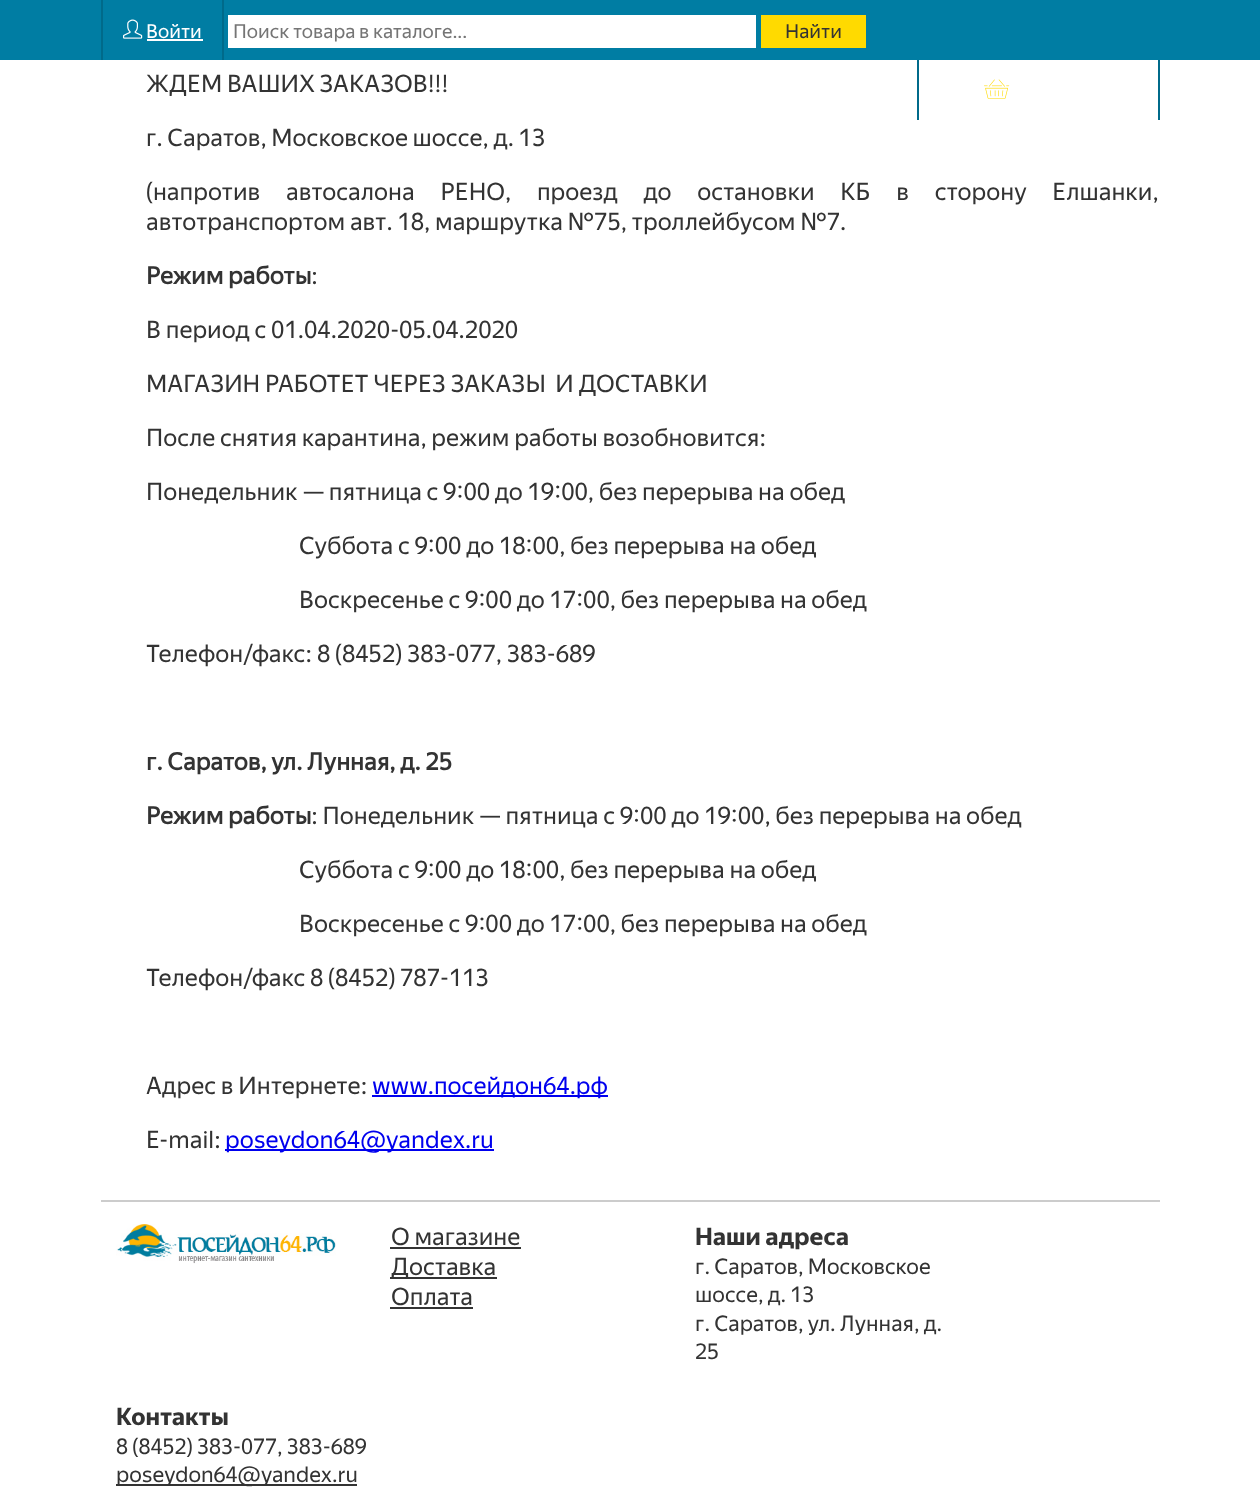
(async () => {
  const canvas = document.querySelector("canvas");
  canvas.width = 1260;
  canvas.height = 1500;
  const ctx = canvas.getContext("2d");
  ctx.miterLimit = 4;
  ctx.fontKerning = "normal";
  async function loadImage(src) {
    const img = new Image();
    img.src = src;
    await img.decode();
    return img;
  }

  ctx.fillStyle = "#ffffff";
  ctx.fillRect(0, 0, 1260, 1500);
  for (const [x, y, w, h, color] of [
    [0, 0, 1260, 60, "#007da3"],
    [222, 0, 2, 60, "#006a8a"],
    [101, 0, 2, 60, "#006a8a"],
  ]) {
    ctx.fillStyle = color;
    ctx.fillRect(x, y, w, h);
  }
  ctx.drawImage(await loadImage("img/1.png"), 123, 19, 20, 20);
  for (const [x, y, w, h, color] of [
    [147, 39, 56, 2, "#ffffff"],
    [228, 15, 528, 33, "#ffffff"],
    [761, 15, 105, 33, "#ffda00"],
    [1158, 60, 2, 60, "#006a8a"],
    [917, 60, 2, 60, "#006a8a"],
  ]) {
    ctx.fillStyle = color;
    ctx.fillRect(x, y, w, h);
  }
  ctx.drawImage(await loadImage("img/2.png"), 984, 79, 26, 20);
  for (const [x, y, w, h, color] of [
    [372, 1095, 236, 2, "#0000ee"],
    [225, 1149, 269, 2, "#0000ee"],
    [101, 1200, 1059, 2, "#cccccc"],
  ]) {
    ctx.fillStyle = color;
    ctx.fillRect(x, y, w, h);
  }
  ctx.drawImage(await loadImage("img/3.png"), 116, 1224, 220, 40);
  for (const [x, y, w, h, color] of [
    [390, 1247, 131, 2, "#333333"],
    [390, 1277, 107, 2, "#333333"],
    [390, 1307, 83, 2, "#333333"],
    [116, 1484, 241, 2, "#333333"],
  ]) {
    ctx.fillStyle = color;
    ctx.fillRect(x, y, w, h);
  }
  ctx.font = "19.25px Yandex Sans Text";
  ctx.fillStyle = "#ffffff";
  ctx.fillText("Войти", 146, 38);
  ctx.fillStyle = "#757575";
  ctx.fillText("Поиск товара в каталоге...", 233, 38);
  ctx.fillStyle = "#333333";
  ctx.fillText("Найти", 785, 38);
  ctx.font = "24px Yandex Sans Text";
  ctx.fillText("ЖДЕМ ВАШИХ ЗАКАЗОВ!!!", 146, 92);
  ctx.fillText("г. Саратов, Московское шоссе, д. 13", 146, 146);
  ctx.wordSpacing = "21px";
  ctx.fillText("(напротив автосалона РЕНО, проезд до остановки КБ в сторону Елшанки,", 146, 200);
  ctx.wordSpacing = "0px";
  ctx.fillText("автотранспортом авт. 18, маршрутка №75, троллейбусом №7.", 146, 230);
  ctx.font = "bold 24px Yandex Sans Text";
  ctx.fillText("Режим работы", 146, 284);
  ctx.font = "24px Yandex Sans Text";
  for (const [text, x, y] of [
    [":", 311, 284],
    ["В период с 01.04.2020-05.04.2020", 146, 338],
    ["МАГАЗИН РАБОТЕТ ЧЕРЕЗ ЗАКАЗЫ  И ДОСТАВКИ", 146, 392],
    ["После снятия карантина, режим работы возобновится:", 146, 446],
    ["Понедельник — пятница с 9:00 до 19:00, без перерыва на обед", 146, 500],
    ["Суббота с 9:00 до 18:00, без перерыва на обед", 299, 554],
    ["Воскресенье с 9:00 до 17:00, без перерыва на обед", 299, 608],
    ["Телефон/факс: 8 (8452) 383-077, 383-689", 146, 662],
  ]) {
    ctx.fillText(text, x, y);
  }
  ctx.font = "bold 24px Yandex Sans Text";
  ctx.fillText("г. Саратов, ул. Лунная, д. 25", 146, 770);
  ctx.fillText("Режим работы", 146, 824);
  ctx.font = "24px Yandex Sans Text";
  for (const [text, x, y] of [
    [": Понедельник — пятница с 9:00 до 19:00, без перерыва на обед", 311, 824],
    ["Суббота с 9:00 до 18:00, без перерыва на обед", 299, 878],
    ["Воскресенье с 9:00 до 17:00, без перерыва на обед", 299, 932],
    ["Телефон/факс 8 (8452) 787-113", 146, 986],
    ["Адрес в Интернете:", 146, 1094],
  ]) {
    ctx.fillText(text, x, y);
  }
  ctx.fillStyle = "#0000ee";
  ctx.fillText("www.посейдон64.рф", 372, 1094);
  ctx.fillStyle = "#333333";
  ctx.fillText("E-mail:", 146, 1148);
  ctx.fillStyle = "#0000ee";
  ctx.fillText("poseydon64@yandex.ru", 225, 1148);
  ctx.fillStyle = "#333333";
  for (const [text, x, y] of [
    ["О магазине", 391, 1245],
    ["Доставка", 391, 1275],
    ["Оплата", 391, 1305],
  ]) {
    ctx.fillText(text, x, y);
  }
  ctx.font = "bold 24px 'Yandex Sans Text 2'";
  ctx.fillText("Наши адреса", 695, 1245);
  ctx.font = "21.6px Yandex Sans Text";
  for (const [text, x, y] of [
    ["г. Саратов, Московское", 695, 1274],
    ["шоссе, д. 13", 695, 1302],
    ["г. Саратов, ул. Лунная, д.", 695, 1331],
    ["25", 695, 1359],
  ]) {
    ctx.fillText(text, x, y);
  }
  ctx.font = "bold 24px 'Yandex Sans Text 2'";
  ctx.fillText("Контакты", 116, 1425);
  ctx.font = "21.6px Yandex Sans Text";
  ctx.fillText("8 (8452) 383-077, 383-689", 116, 1454);
  ctx.fillText("poseydon64@yandex.ru", 116, 1482);
})();
